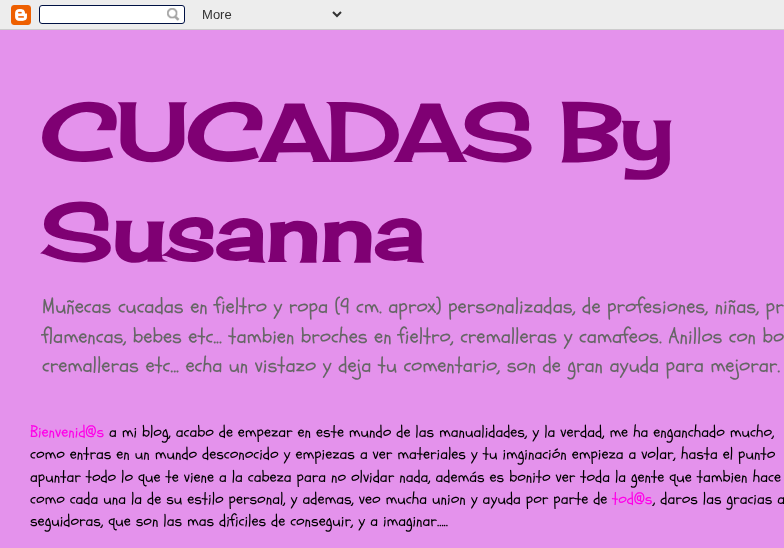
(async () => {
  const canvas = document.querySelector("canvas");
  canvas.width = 784;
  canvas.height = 548;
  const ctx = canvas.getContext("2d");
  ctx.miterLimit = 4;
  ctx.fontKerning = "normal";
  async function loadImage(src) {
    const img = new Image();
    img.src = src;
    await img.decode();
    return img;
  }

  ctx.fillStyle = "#e492ec";
  ctx.fillRect(0, 0, 784, 548);
  ctx.drawImage(await loadImage("img/1.png"), 0, 0, 784, 30);
  ctx.font = "bold 80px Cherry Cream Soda";
  ctx.fillStyle = "#7f0073";
  ctx.fillText("CUCADAS By", 40, 162);
  ctx.fillText("Susanna", 40, 262);
  ctx.font = "20.8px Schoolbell";
  ctx.fillStyle = "#666666";
  for (const [text, x, y] of [
    ["Muñecas cucadas en fieltro y ropa (9 cm. aprox) personalizadas, de profesiones, niñas, pr", 42, 313],
    ["flamencas, bebes etc... tambien broches en fieltro, cremalleras y camafeos. Anillos con bo", 42, 343],
    ["cremalleras etc... echa un vistazo y deja tu comentario, son de gran ayuda para mejorar.", 42, 372],
  ]) {
    ctx.fillText(text, x, y);
  }
  ctx.font = "16px Schoolbell";
  ctx.fillStyle = "#ff00e8";
  ctx.fillText("Bienvenid@s", 30, 437);
  ctx.fillStyle = "#000000";
  for (const [text, x, y] of [
    ["a mi blog, acabo de empezar en este mundo de las manualidades, y la verdad, me ha enganchado mucho,", 109, 437],
    ["como entras en un mundo desconocido y empiezas a ver materiales y tu imginación empieza a volar, hasta el punto", 30, 459],
    ["apuntar todo lo que te viene a la cabeza para no olvidar nada, además es bonito ver toda la gente que tambien hace", 30, 482],
    ["como cada una la de su estilo personal, y ademas, veo mucha union y ayuda por parte de", 30, 504],
  ]) {
    ctx.fillText(text, x, y);
  }
  ctx.fillStyle = "#ff00e8";
  ctx.fillText("tod@s", 612, 504);
  ctx.fillStyle = "#000000";
  ctx.fillText(", daros las gracias a", 653, 504);
  ctx.fillText("seguidoras, que son las mas dificiles de conseguir, y a imaginar.....", 30, 526);
})();
